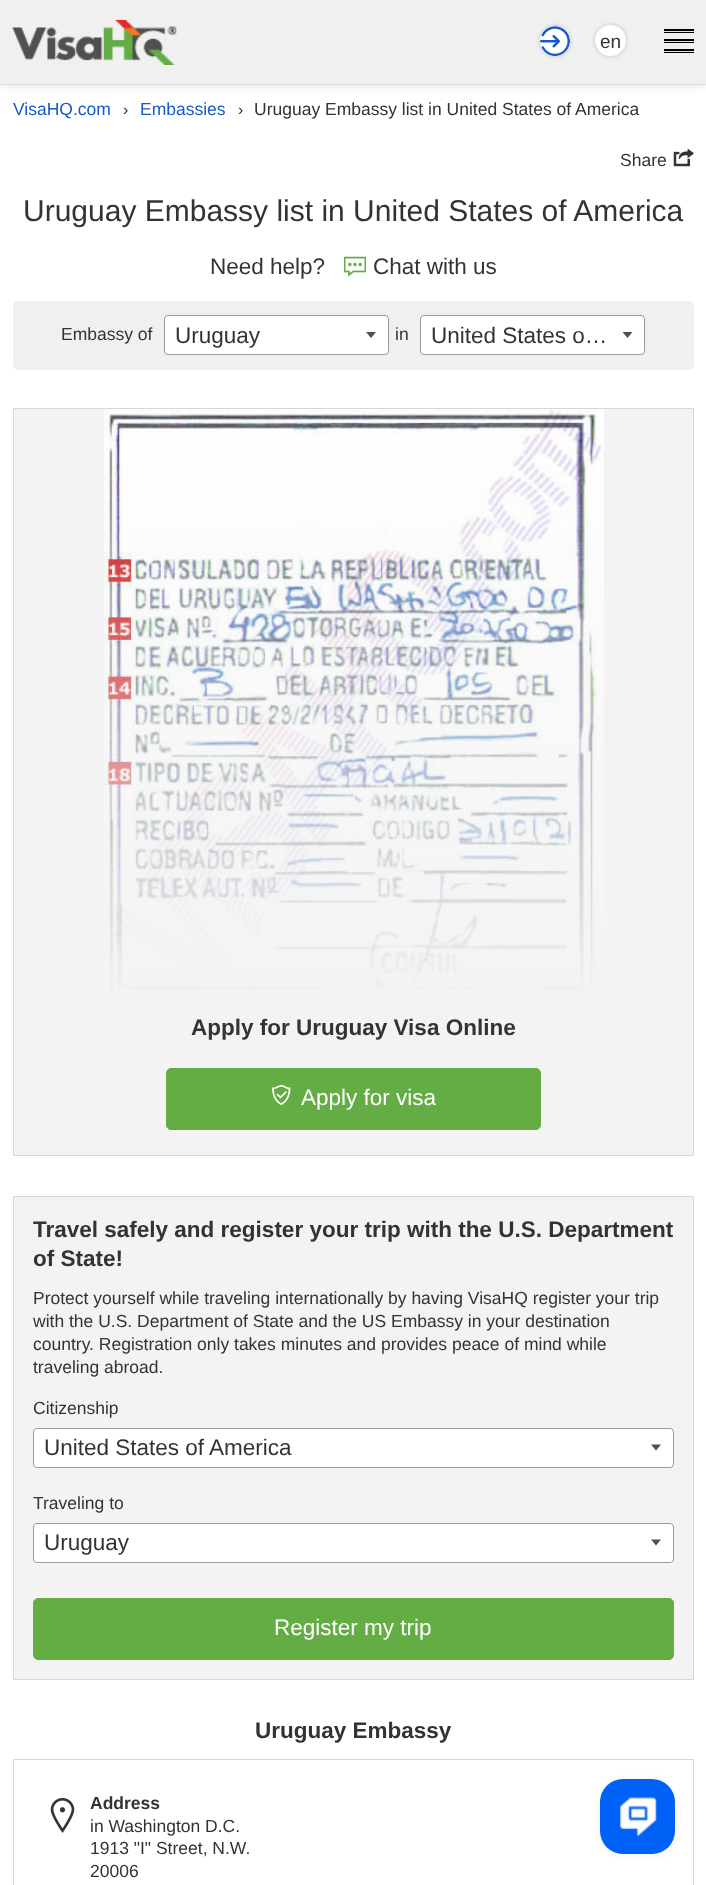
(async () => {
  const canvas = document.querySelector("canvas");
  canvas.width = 706;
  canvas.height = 1885;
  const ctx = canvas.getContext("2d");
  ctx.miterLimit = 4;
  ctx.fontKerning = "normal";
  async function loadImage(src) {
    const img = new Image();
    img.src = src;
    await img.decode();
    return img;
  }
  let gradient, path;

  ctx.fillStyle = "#ffffff";
  ctx.fillRect(0, 0, 706, 1885);
  ctx.fillStyle = "#dcdcdc";
  ctx.filter = "blur(4px)";
  ctx.beginPath();
  ctx.rect(0, 0, 706, 85);
  ctx.fill();
  ctx.filter = "none";
  ctx.fillStyle = "#f0f0f0";
  ctx.fillRect(0, 0, 706, 84);
  ctx.fillStyle = "#dcdcdc";
  ctx.fillRect(0, 84, 706, 1);
  ctx.drawImage(await loadImage("img/1.png"), 12, 20, 165, 45);
  ctx.fillStyle = "rgba(0, 0, 0, 0.2)";
  ctx.filter = "blur(2px)";
  ctx.beginPath();
  ctx.roundRect(540, 26, 30, 30, 15);
  ctx.fill();
  ctx.filter = "none";
  ctx.fillStyle = "#ffffff";
  ctx.beginPath();
  ctx.arc(555, 41, 15, 0, Math.PI * 2);
  ctx.fill();
  ctx.drawImage(await loadImage("img/2.png"), 540, 26, 30, 30);
  ctx.fillStyle = "rgba(0, 0, 0, 0.2)";
  ctx.filter = "blur(2px)";
  ctx.beginPath();
  ctx.roundRect(595, 25, 31, 31, 15.5);
  ctx.fill();
  ctx.filter = "none";
  ctx.fillStyle = "#ffffff";
  ctx.beginPath();
  ctx.arc(610.5, 40.5, 15.5, 0, Math.PI * 2);
  ctx.fill();
  for (const [x, y, w, h, color] of [
    [664, 29, 30, 4, "#000000"],
    [664, 31, 30, 1, "#e3e3e3"],
    [664, 39, 30, 4, "#000000"],
    [664, 41, 30, 1, "#e3e3e3"],
    [664, 49, 30, 4, "#000000"],
    [664, 51, 30, 1, "#e3e3e3"],
  ]) {
    ctx.fillStyle = color;
    ctx.fillRect(x, y, w, h);
  }
  ctx.drawImage(await loadImage("img/3.png"), 673, 149, 21, 18);
  ctx.drawImage(await loadImage("img/4.png"), 344, 256, 22, 21);
  ctx.fillStyle = "#f0f0f0";
  ctx.beginPath();
  ctx.roundRect(13, 301, 681, 69, 5);
  ctx.fill();
  ctx.fillStyle = "#ffffff";
  ctx.beginPath();
  ctx.roundRect(164.5, 315.5, 224, 39, 3.5);
  ctx.fill();
  ctx.strokeStyle = "#9a9a9a";
  ctx.stroke();
  ctx.fillStyle = "#505050";
  path = new Path2D("M366 332H376L371 338Z");
  ctx.fill(path);
  ctx.fillStyle = "#ffffff";
  ctx.beginPath();
  ctx.roundRect(420.5, 315.5, 224, 39, 3.5);
  ctx.fill();
  ctx.stroke();
  ctx.fillStyle = "#505050";
  path = new Path2D("M622.5 332H632.5L627.5 338Z");
  ctx.fill(path);
  ctx.fillStyle = "#f3f3f3";
  ctx.beginPath();
  ctx.rect(13.5, 408.5, 680, 747);
  ctx.fill();
  ctx.strokeStyle = "#d7d7d7";
  ctx.stroke();
  ctx.drawImage(await loadImage("img/5.png"), 103, 409, 501, 592);
  gradient = ctx.createLinearGradient(354, 409, 354, 1001);
  gradient.addColorStop(0, "rgba(243, 243, 243, 0)");
  gradient.addColorStop(1, "#f3f3f3");
  ctx.fillStyle = gradient;
  ctx.fillRect(104, 422, 500, 579);
  ctx.fillStyle = "#64ac44";
  ctx.beginPath();
  ctx.roundRect(166.5, 1068.5, 374, 61, 4.5);
  ctx.fill();
  ctx.strokeStyle = "#64ac44";
  ctx.stroke();
  ctx.drawImage(await loadImage("img/6.png"), 272, 1085, 19, 20);
  ctx.fillStyle = "#f3f3f3";
  ctx.beginPath();
  ctx.rect(13.5, 1196.5, 680, 483);
  ctx.fill();
  ctx.strokeStyle = "#d7d7d7";
  ctx.stroke();
  ctx.fillStyle = "#ffffff";
  ctx.beginPath();
  ctx.roundRect(33.5, 1428.5, 640, 39, 3.5);
  ctx.fill();
  ctx.strokeStyle = "#9a9a9a";
  ctx.stroke();
  ctx.fillStyle = "#505050";
  path = new Path2D("M651 1444.5H661L656 1450.5Z");
  ctx.fill(path);
  ctx.fillStyle = "#ffffff";
  ctx.beginPath();
  ctx.roundRect(33.5, 1523.5, 640, 39, 3.5);
  ctx.fill();
  ctx.stroke();
  ctx.fillStyle = "#505050";
  path = new Path2D("M651 1539.5H661L656 1545.5Z");
  ctx.fill(path);
  ctx.fillStyle = "#64ac44";
  ctx.beginPath();
  ctx.roundRect(33.5, 1598.5, 640, 61, 4.5);
  ctx.fill();
  ctx.strokeStyle = "#64ac44";
  ctx.stroke();
  ctx.strokeStyle = "#d7d7d7";
  ctx.strokeRect(13.5, 1759.5, 680, 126);
  ctx.drawImage(await loadImage("img/7.png"), 50, 1798, 25, 35);
  ctx.fillStyle = "rgba(0, 0, 0, 0.06)";
  ctx.filter = "blur(4px)";
  ctx.beginPath();
  ctx.roundRect(600, 1780, 75, 75, 23);
  ctx.fill();
  ctx.filter = "none";
  ctx.fillStyle = "#0061f6";
  ctx.beginPath();
  ctx.roundRect(600, 1779, 75, 75, 23);
  ctx.fill();
  ctx.drawImage(await loadImage("img/8.png"), 619, 1797, 38, 40);
  ctx.font = "19px Liberation Sans";
  ctx.fillStyle = "#333333";
  ctx.fillText("en", 600, 48);
  ctx.font = "17.5px Liberation Sans";
  ctx.fillStyle = "#1659cd";
  ctx.fillText("VisaHQ.com", 13, 115);
  ctx.font = "16px Liberation Sans";
  ctx.fillStyle = "#333333";
  ctx.fillText("›", 123, 115);
  ctx.font = "17.5px Liberation Sans";
  ctx.fillStyle = "#1659cd";
  ctx.fillText("Embassies", 140, 115);
  ctx.font = "16px Liberation Sans";
  ctx.fillStyle = "#333333";
  ctx.fillText("›", 238, 115);
  ctx.font = "17.5px Liberation Sans";
  ctx.fillText("Uruguay Embassy list in United States of America", 254, 115);
  ctx.fillText("Share", 620, 166);
  ctx.font = "30px Liberation Sans";
  ctx.fillText("Uruguay Embassy list in United States of America", 23, 221);
  ctx.font = "22.5px Liberation Sans";
  ctx.fillText("Need help?", 210, 274);
  ctx.fillText("Chat with us", 373, 274);
  ctx.font = "17.5px Liberation Sans";
  ctx.fillText("Embassy of", 61, 340);
  ctx.font = "22.5px Liberation Sans";
  ctx.fillText("Uruguay", 175, 343);
  ctx.font = "17.5px Liberation Sans";
  ctx.fillText("in", 395, 340);
  ctx.font = "22.5px Liberation Sans";
  ctx.fillText("United States o…", 431, 343);
  ctx.font = "bold 22.5px Liberation Sans";
  ctx.fillText("Apply for Uruguay Visa Online", 191, 1035);
  ctx.font = "22.5px Liberation Sans";
  ctx.fillStyle = "#ffffff";
  ctx.fillText("Apply for visa", 301, 1105);
  ctx.font = "bold 22.5px Liberation Sans";
  ctx.fillStyle = "#333333";
  ctx.fillText("Travel safely and register your trip with the U.S. Department", 33, 1237);
  ctx.fillText("of State!", 33, 1266);
  ctx.font = "17.5px Liberation Sans";
  for (const [text, x, y] of [
    ["Protect yourself while traveling internationally by having VisaHQ register your trip", 33, 1304],
    ["with the U.S. Department of State and the US Embassy in your destination", 33, 1327],
    ["country. Registration only takes minutes and provides peace of mind while", 33, 1350],
    ["traveling abroad.", 33, 1373],
    ["Citizenship", 33, 1414],
  ]) {
    ctx.fillText(text, x, y);
  }
  ctx.font = "22.5px Liberation Sans";
  ctx.fillText("United States of America", 44, 1455);
  ctx.font = "17.5px Liberation Sans";
  ctx.fillText("Traveling to", 33, 1509);
  ctx.font = "22.5px Liberation Sans";
  ctx.fillText("Uruguay", 44, 1550);
  ctx.fillStyle = "#ffffff";
  ctx.fillText("Register my trip", 274, 1635);
  ctx.font = "bold 22.5px Liberation Sans";
  ctx.fillStyle = "#333333";
  ctx.fillText("Uruguay Embassy", 255, 1738);
  ctx.font = "bold 17.5px Liberation Sans";
  ctx.fillText("Address", 90, 1809);
  ctx.font = "17.5px Liberation Sans";
  for (const [text, x, y] of [
    ["in Washington D.C.", 90, 1832],
    ["1913 \"I\" Street, N.W.", 90, 1854],
    ["20006", 90, 1877],
  ]) {
    ctx.fillText(text, x, y);
  }
})();
